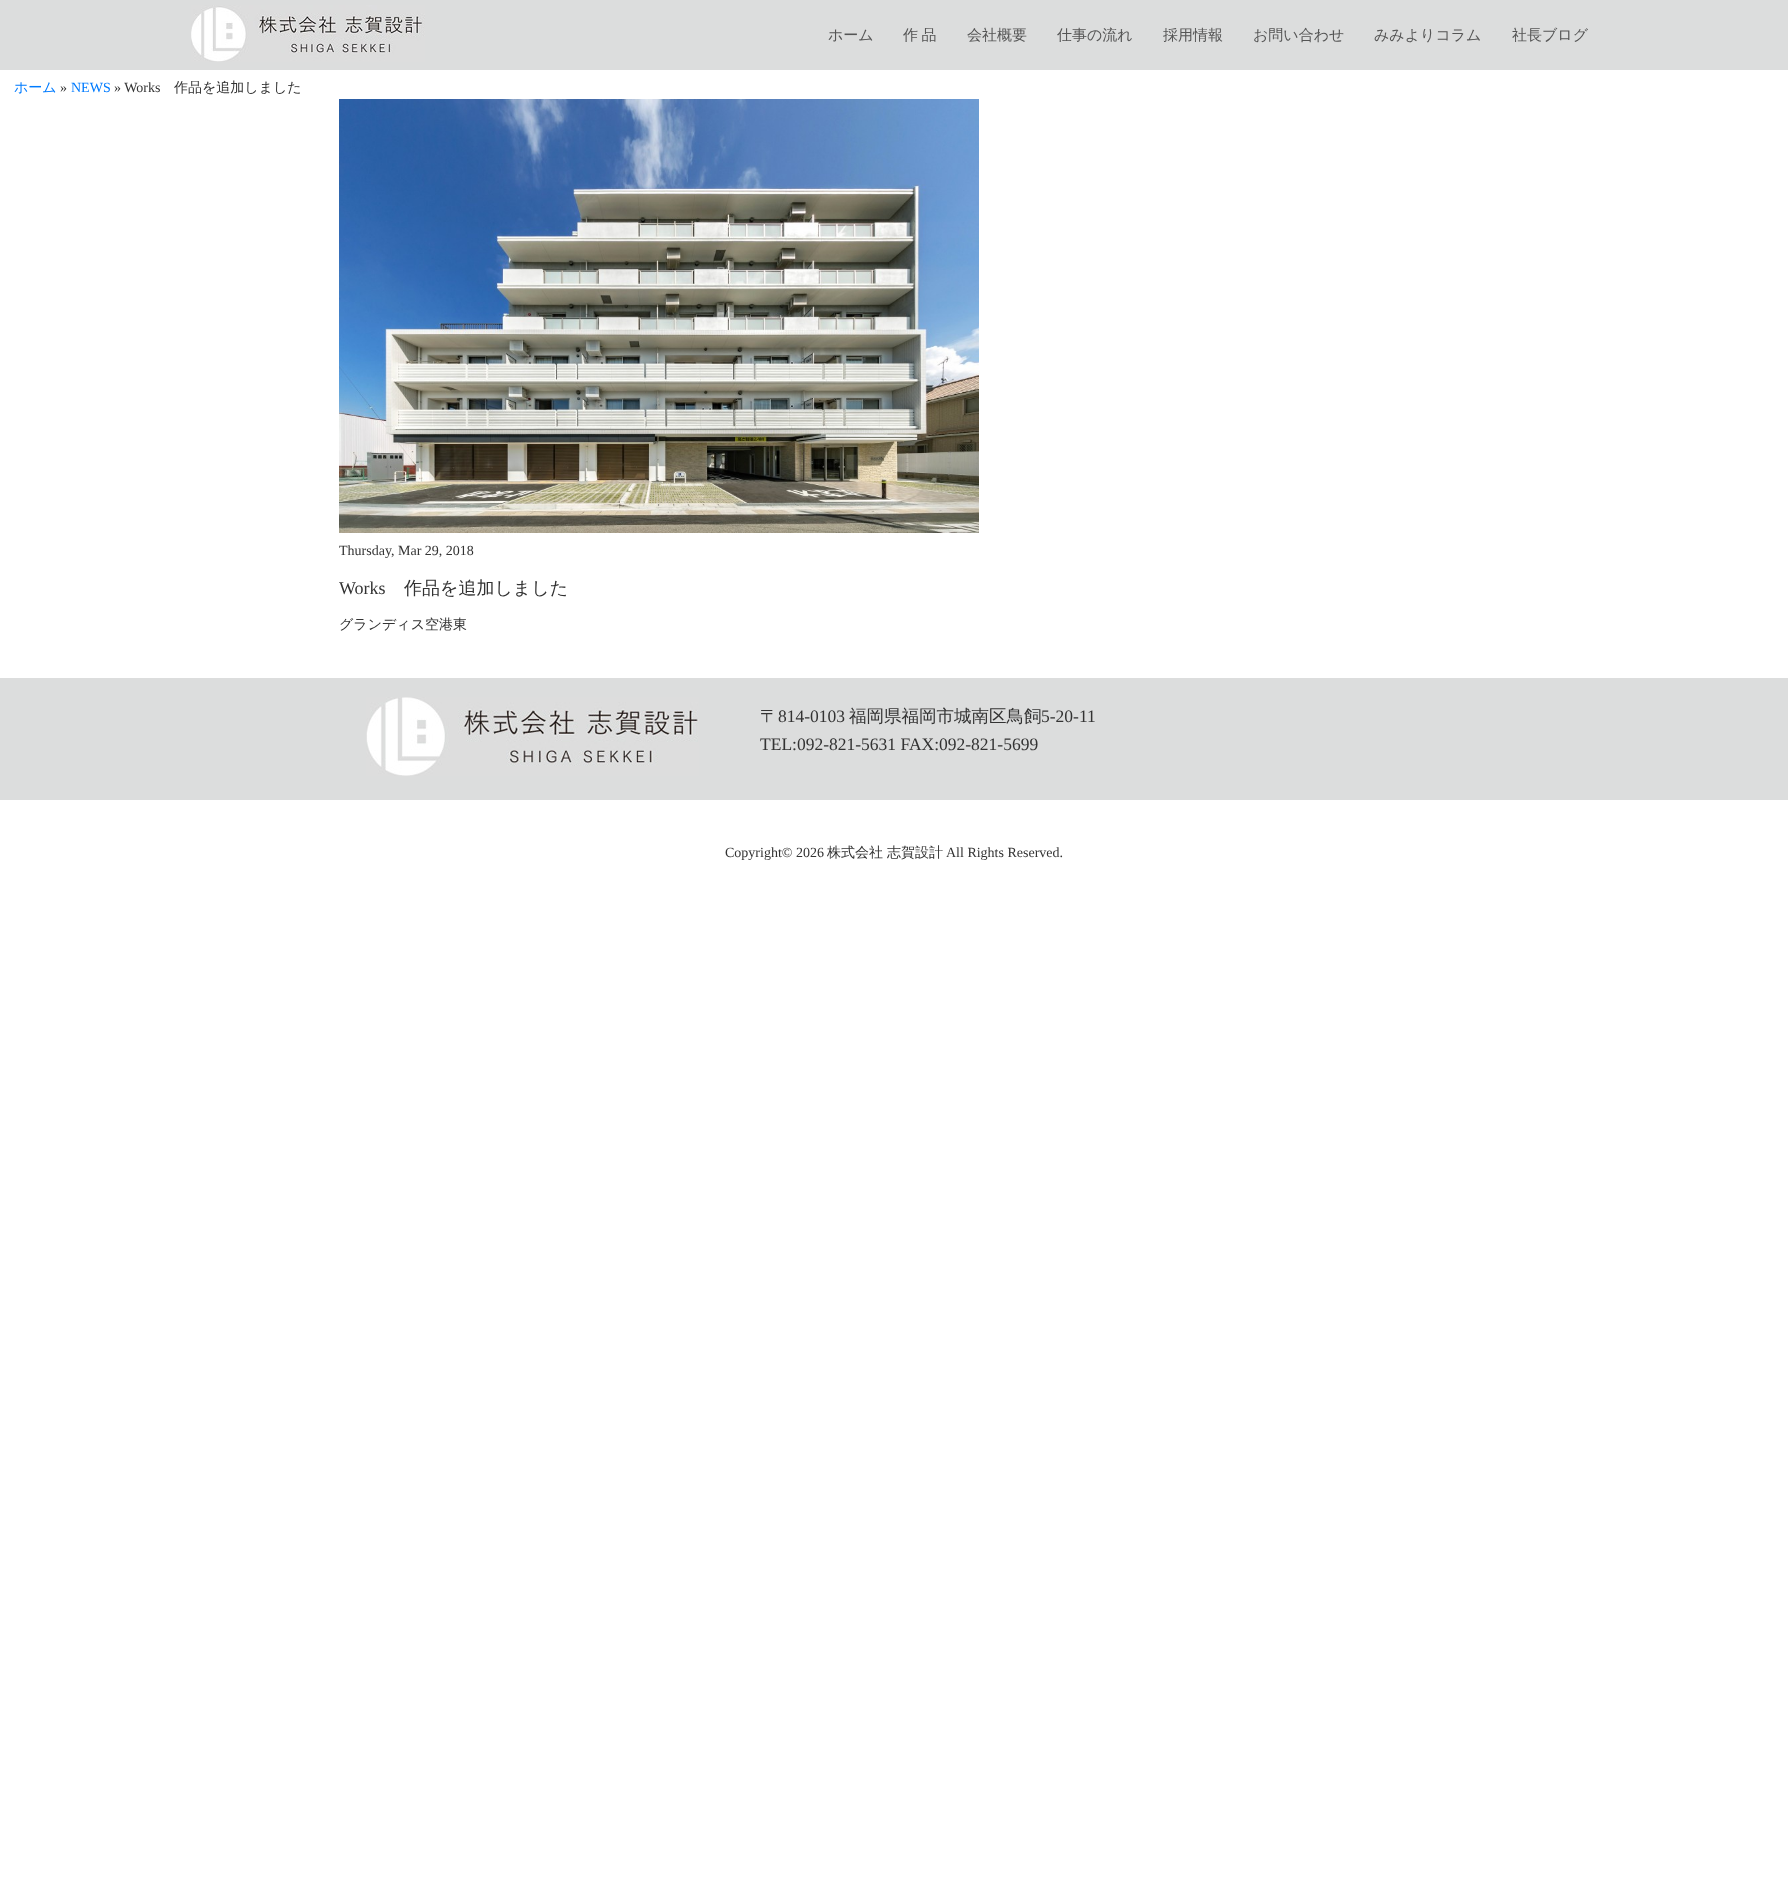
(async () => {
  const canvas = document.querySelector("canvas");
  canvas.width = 1788;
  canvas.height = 1889;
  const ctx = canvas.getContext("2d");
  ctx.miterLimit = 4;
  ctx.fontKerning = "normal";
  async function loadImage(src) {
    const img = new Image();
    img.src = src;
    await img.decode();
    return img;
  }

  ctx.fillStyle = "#ffffff";
  ctx.fillRect(0, 0, 1788, 1889);
  ctx.fillStyle = "#dcdddd";
  ctx.fillRect(0, 0, 1788, 70);
  ctx.drawImage(await loadImage("img/1.png"), 191, 5, 234, 57);
  ctx.drawImage(await loadImage("img/2.png"), 339, 99, 640, 434);
  ctx.fillRect(0, 678, 1788, 122);
  ctx.drawImage(await loadImage("img/3.png"), 366, 697, 333, 79);
  ctx.font = "500 15px WenQuanYi Zen Hei";
  ctx.fillStyle = "#555555";
  ctx.fillText("ホーム", 828, 40);
  ctx.wordSpacing = "-1px";
  ctx.fillText("作 品", 903, 40);
  ctx.wordSpacing = "0px";
  for (const [text, x, y] of [
    ["会社概要", 967, 40],
    ["仕事の流れ", 1057, 40],
    ["採用情報", 1163, 40],
    ["お問い合わせ", 1253, 40],
    ["みみよりコラム", 1374, 40],
    ["社長ブログ", 1512, 40],
  ]) {
    ctx.fillText(text, x, y);
  }
  ctx.font = "500 14px WenQuanYi Zen Hei";
  ctx.fillStyle = "#007bff";
  ctx.fillText("ホーム", 14, 92);
  ctx.font = "14px Liberation Serif";
  ctx.fillStyle = "#333333";
  ctx.fillText("»", 60, 92);
  ctx.fillStyle = "#007bff";
  ctx.fillText("NEWS", 71, 92);
  ctx.fillStyle = "#333333";
  ctx.fillText("» Works", 114, 92);
  ctx.font = "500 14px WenQuanYi Zen Hei";
  ctx.fillText("作品を追加しました", 174, 92);
  ctx.font = "14px Liberation Serif";
  ctx.fillText("Thursday, Mar 29, 2018", 339, 555);
  ctx.font = "18px Liberation Serif";
  ctx.fillText("Works", 339, 594);
  ctx.font = "500 18px WenQuanYi Zen Hei";
  ctx.fillText("作品を追加しました", 404, 594);
  ctx.font = "500 14px WenQuanYi Zen Hei";
  ctx.fillText("グランディス空港東", 339, 629);
  ctx.font = "500 17.5px WenQuanYi Zen Hei";
  ctx.fillText("〒", 760, 722);
  ctx.font = "17.5px Liberation Serif";
  ctx.fillText("814-0103", 778, 722);
  ctx.font = "500 17.5px WenQuanYi Zen Hei";
  ctx.fillText("福岡県福岡市城南区鳥飼", 849, 722);
  ctx.font = "17.5px Liberation Serif";
  ctx.fillText("5-20-11", 1041, 722);
  ctx.fillText("TEL:092-821-5631 FAX:092-821-5699", 760, 750);
  ctx.font = "14px Liberation Serif";
  ctx.fillText("Copyright© 2026", 725, 857);
  ctx.font = "500 14px WenQuanYi Zen Hei";
  ctx.fillText("株式会社", 827, 857);
  ctx.fillText("志賀設計", 887, 857);
  ctx.font = "14px Liberation Serif";
  ctx.fillText("All Rights Reserved.", 946, 857);
})();
